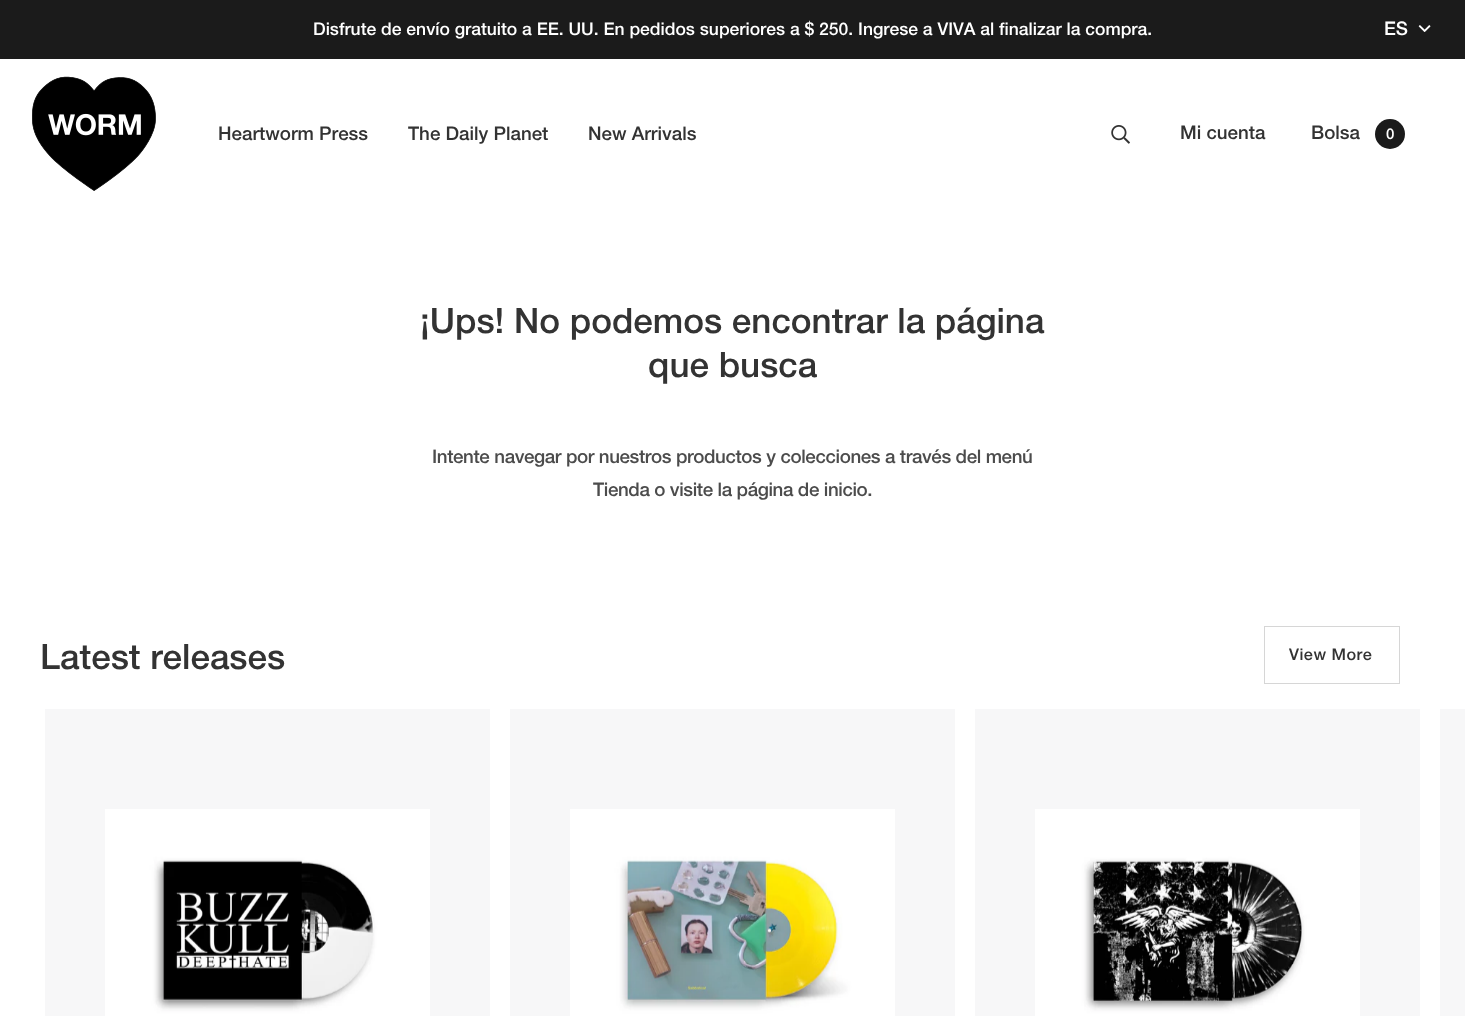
(async () => {
  const canvas = document.querySelector("canvas");
  canvas.width = 1465;
  canvas.height = 1016;
  const ctx = canvas.getContext("2d");
  ctx.miterLimit = 4;
  ctx.fontKerning = "normal";
  async function loadImage(src) {
    const img = new Image();
    img.src = src;
    await img.decode();
    return img;
  }

  ctx.fillStyle = "#ffffff";
  ctx.fillRect(0, 0, 1465, 1016);
  ctx.fillStyle = "#1b1b1b";
  ctx.fillRect(0, 0, 1465, 59);
  ctx.drawImage(await loadImage("img/1.png"), 1418, 25, 13, 7);
  ctx.drawImage(await loadImage("img/2.png"), 32, 76, 124, 115);
  ctx.drawImage(await loadImage("img/3.png"), 1111, 125, 19, 19);
  ctx.beginPath();
  ctx.arc(1390, 134, 15, 0, Math.PI * 2);
  ctx.fill();
  ctx.strokeStyle = "#d6d6d6";
  ctx.strokeRect(1264.5, 626.5, 135, 57);
  ctx.fillStyle = "#f7f7f8";
  ctx.fillRect(45, 709, 445, 307);
  ctx.drawImage(await loadImage("img/4.png"), 105, 809, 325, 207);
  ctx.fillRect(510, 709, 445, 307);
  ctx.drawImage(await loadImage("img/5.png"), 570, 809, 325, 207);
  ctx.fillRect(975, 709, 445, 307);
  ctx.drawImage(await loadImage("img/6.png"), 1035, 809, 325, 207);
  ctx.fillRect(1440, 709, 25, 307);
  ctx.font = "500 17.5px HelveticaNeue";
  ctx.fillStyle = "#ffffff";
  ctx.fillText("Disfrute de envío gratuito a EE. UU. En pedidos superiores a $ 250. Ingrese a VIVA al finalizar la compra.", 313, 35);
  ctx.font = "500 18.75px HelveticaNeue";
  ctx.fillText("ES", 1384, 35);
  ctx.fillStyle = "#333333";
  for (const [text, x, y] of [
    ["Heartworm Press", 218, 140],
    ["The Daily Planet", 408, 140],
    ["New Arrivals", 588, 140],
    ["Mi cuenta", 1180, 139],
    ["Bolsa", 1311, 139],
  ]) {
    ctx.fillText(text, x, y);
  }
  ctx.font = "500 15px HelveticaNeue";
  ctx.fillStyle = "#ffffff";
  ctx.fillText("0", 1386, 139);
  ctx.font = "500 35px HelveticaNeue";
  ctx.fillStyle = "#333333";
  ctx.fillText("¡Ups! No podemos encontrar la página", 420, 333);
  ctx.fillText("que busca", 648, 377);
  ctx.letterSpacing = "-0.38px";
  ctx.font = "500 18.75px HelveticaNeue";
  ctx.fillStyle = "#4c4c4c";
  ctx.fillText("Intente navegar por nuestros productos y colecciones a través del menú", 432, 463);
  ctx.fillText("Tienda o visite la página de inicio.", 593, 496);
  ctx.letterSpacing = "0px";
  ctx.font = "500 35px HelveticaNeue";
  ctx.fillStyle = "#333333";
  ctx.fillText("Latest releases", 40, 669);
  ctx.letterSpacing = "0.5px";
  ctx.font = "500 16.25px HelveticaNeue";
  ctx.fillText("View More", 1289, 660);
})();
